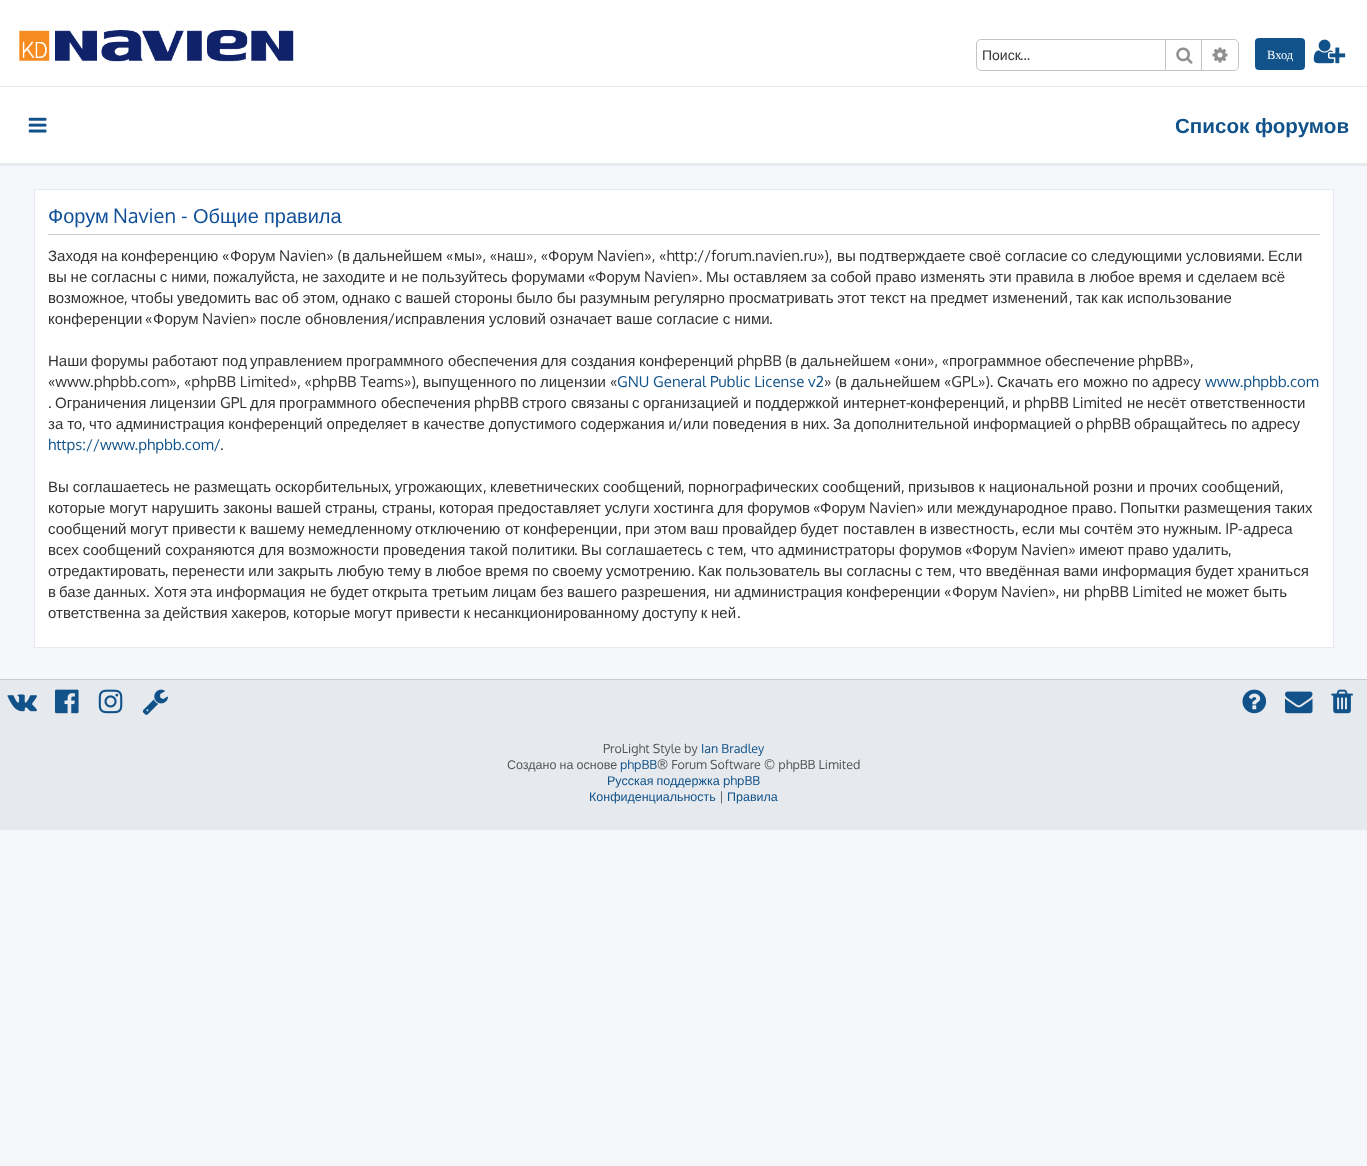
(async () => {
  const canvas = document.querySelector("canvas");
  canvas.width = 1367;
  canvas.height = 1166;
  const ctx = canvas.getContext("2d");
  ctx.miterLimit = 4;
  ctx.fontKerning = "normal";
  async function loadImage(src) {
    const img = new Image();
    img.src = src;
    await img.decode();
    return img;
  }

  ctx.fillStyle = "#f5f7fa";
  ctx.fillRect(0, 0, 1367, 1166);
  ctx.fillStyle = "#ffffff";
  ctx.fillRect(0, 0, 1367, 88);
  ctx.fillStyle = "#e6e9ed";
  ctx.fillRect(0, 86, 1367, 1);
  ctx.drawImage(await loadImage("img/1.png"), 19, 30, 275, 32);
  ctx.beginPath();
  ctx.roundRect(976.5, 39.5, 262, 31, 4.5);
  ctx.strokeStyle = "#c7c3bf";
  ctx.stroke();
  ctx.fillStyle = "#c7c3bf";
  ctx.fillRect(1201, 40, 1, 30);
  ctx.fillRect(1165, 40, 1, 30);
  ctx.drawImage(await loadImage("img/2.png"), 1176, 47, 17, 17);
  ctx.fillStyle = "#ffffff";
  ctx.beginPath();
  ctx.roundRect(1203, 40, 35, 30, [0, 5, 5, 0]);
  ctx.fill();
  ctx.drawImage(await loadImage("img/3.png"), 1212, 47, 16, 16);
  ctx.fillStyle = "#105289";
  ctx.beginPath();
  ctx.roundRect(1255, 38, 50, 32, 4);
  ctx.fill();
  ctx.drawImage(await loadImage("img/4.png"), 1313, 39, 33, 25);
  ctx.fillStyle = "#ffffff";
  ctx.fillRect(0, 88, 1367, 75);
  ctx.fillStyle = "#e6e9ed";
  ctx.fillRect(0, 163, 1367, 3);
  ctx.drawImage(await loadImage("img/5.png"), 28, 117, 19, 16);
  ctx.fillStyle = "#ffffff";
  ctx.beginPath();
  ctx.rect(34.5, 189.5, 1299, 458);
  ctx.fill();
  ctx.strokeStyle = "#e6e9ed";
  ctx.stroke();
  for (const [x, y, w, h, color] of [
    [48, 234, 1272, 1, "#cccccc"],
    [0, 680, 1367, 150, "#e6e9ed"],
    [0, 679, 1367, 1, "#cccccc"],
  ]) {
    ctx.fillStyle = color;
    ctx.fillRect(x, y, w, h);
  }
  ctx.drawImage(await loadImage("img/6.png"), 7, 694, 30, 18);
  ctx.drawImage(await loadImage("img/7.png"), 55, 689, 24, 25);
  ctx.drawImage(await loadImage("img/8.png"), 98, 689, 25, 25);
  ctx.drawImage(await loadImage("img/9.png"), 142, 689, 26, 26);
  ctx.drawImage(await loadImage("img/10.png"), 1242, 689, 25, 25);
  ctx.drawImage(await loadImage("img/11.png"), 1285, 691, 28, 23);
  ctx.drawImage(await loadImage("img/12.png"), 1331, 689, 22, 25);
  ctx.font = "14px Liberation Sans";
  ctx.fillStyle = "#333333";
  ctx.fillText("Поиск", 982, 60);
  ctx.font = "14px Oxygen";
  ctx.fillText("…", 1020, 60);
  ctx.font = "12.5px Liberation Serif";
  ctx.fillStyle = "#ffffff";
  ctx.fillText("Вход", 1267, 59);
  ctx.font = "bold 20.6px Liberation Sans";
  ctx.fillStyle = "#105289";
  ctx.fillText("Список форумов", 1175, 133);
  ctx.font = "20px Liberation Sans";
  ctx.fillStyle = "#115098";
  ctx.fillText("Форум", 48, 223);
  ctx.font = "20px Oxygen";
  ctx.fillText("Navien -", 113, 223);
  ctx.font = "20px Liberation Sans";
  ctx.fillText("Общие", 193, 223);
  ctx.fillText("правила", 264, 223);
  ctx.font = "15px Liberation Sans";
  ctx.fillStyle = "#333333";
  for (const [text, x, y] of [
    ["Заходя", 48, 261],
    ["на", 101, 261],
    ["конференцию", 121, 261],
  ]) {
    ctx.fillText(text, x, y);
  }
  ctx.font = "15px Oxygen";
  ctx.fillText("«", 222, 261);
  ctx.font = "15px Liberation Sans";
  ctx.fillText("Форум", 230, 261);
  ctx.font = "15px Oxygen";
  ctx.fillText("Navien» (", 279, 261);
  ctx.font = "15px Liberation Sans";
  ctx.fillText("в", 342, 261);
  ctx.fillText("дальнейшем", 353, 261);
  ctx.font = "15px Oxygen";
  ctx.fillText("«", 446, 261);
  ctx.font = "15px Liberation Sans";
  ctx.fillText("мы", 454, 261);
  ctx.font = "15px Oxygen";
  ctx.fillText("», «", 475, 261);
  ctx.font = "15px Liberation Sans";
  ctx.fillText("наш", 497, 261);
  ctx.font = "15px Oxygen";
  ctx.fillText("», «", 526, 261);
  ctx.font = "15px Liberation Sans";
  ctx.fillText("Форум", 548, 261);
  ctx.font = "15px Oxygen";
  ctx.fillText("Navien», «http://forum.navien.ru»),", 597, 261);
  ctx.font = "15px Liberation Sans";
  for (const [text, x, y] of [
    ["вы", 837, 261],
    ["подтверждаете", 859, 261],
    ["своё", 969, 261],
    ["согласие", 1005, 261],
    ["со", 1071, 261],
    ["следующими", 1091, 261],
    ["условиями", 1186, 261],
  ]) {
    ctx.fillText(text, x, y);
  }
  ctx.font = "15px Oxygen";
  ctx.fillText(".", 1261, 261);
  ctx.font = "15px Liberation Sans";
  ctx.fillText("Если", 1268, 261);
  ctx.wordSpacing = "-0.3px";
  ctx.fillText("вы не согласны с ними", 48, 282);
  ctx.wordSpacing = "0px";
  ctx.fillText("пожалуйста", 213, 282);
  ctx.wordSpacing = "-0.3px";
  ctx.fillText("не заходите и не пользуйтесь форумами", 302, 282);
  ctx.wordSpacing = "0px";
  ctx.font = "15px Oxygen";
  ctx.fillText("«", 588, 282);
  ctx.font = "15px Liberation Sans";
  ctx.fillText("Форум", 595, 282);
  ctx.font = "15px Oxygen";
  ctx.fillText("Navien».", 644, 282);
  ctx.wordSpacing = "-0.3px";
  ctx.font = "15px Liberation Sans";
  ctx.fillText("Мы оставляем за собой право изменять эти правила в любое время и сделаем всё", 706, 282);
  ctx.wordSpacing = "0px";
  ctx.font = "15px Oxygen";
  ctx.fillText(",", 206, 282);
  ctx.fillText(",", 295, 282);
  ctx.font = "15px Liberation Sans";
  ctx.fillText("возможное", 48, 303);
  ctx.font = "15px Oxygen";
  ctx.fillText(",", 124, 303);
  ctx.wordSpacing = "-0.4px";
  ctx.font = "15px Liberation Sans";
  ctx.fillText("чтобы уведомить вас об этом", 131, 303);
  ctx.wordSpacing = "0px";
  ctx.font = "15px Oxygen";
  ctx.fillText(",", 335, 303);
  ctx.wordSpacing = "-0.4px";
  ctx.font = "15px Liberation Sans";
  ctx.fillText("однако с вашей стороны было бы разумным регулярно просматривать этот текст на предмет изменений", 342, 303);
  ctx.wordSpacing = "0px";
  ctx.font = "15px Oxygen";
  ctx.fillText(",", 1069, 303);
  ctx.wordSpacing = "-0.4px";
  ctx.font = "15px Liberation Sans";
  ctx.fillText("так как использование", 1076, 303);
  ctx.wordSpacing = "0px";
  ctx.fillText("конференции", 48, 324);
  ctx.font = "15px Oxygen";
  ctx.fillText("«", 145, 324);
  ctx.font = "15px Liberation Sans";
  ctx.fillText("Форум", 153, 324);
  ctx.font = "15px Oxygen";
  ctx.fillText("Navien»", 202, 324);
  ctx.wordSpacing = "-0.25px";
  ctx.font = "15px Liberation Sans";
  ctx.fillText("после обновления", 260, 324);
  ctx.wordSpacing = "0px";
  ctx.font = "15px Oxygen";
  ctx.fillText("/", 388, 324);
  ctx.wordSpacing = "-0.25px";
  ctx.font = "15px Liberation Sans";
  ctx.fillText("исправления условий означает ваше согласие с ними", 395, 324);
  ctx.wordSpacing = "0px";
  ctx.font = "15px Oxygen";
  ctx.fillText(".", 769, 324);
  ctx.font = "15px Liberation Sans";
  for (const [text, x, y] of [
    ["Наши", 48, 366],
    ["форумы", 91, 366],
    ["работают", 152, 366],
    ["под", 222, 366],
    ["управлением", 250, 366],
    ["программного", 346, 366],
    ["обеспечения", 448, 366],
    ["для", 541, 366],
    ["создания", 571, 366],
    ["конференций", 639, 366],
  ]) {
    ctx.fillText(text, x, y);
  }
  ctx.font = "15px Oxygen";
  ctx.fillText("phpBB (", 737, 366);
  ctx.font = "15px Liberation Sans";
  ctx.fillText("в", 789, 366);
  ctx.fillText("дальнейшем", 801, 366);
  ctx.font = "15px Oxygen";
  ctx.fillText("«", 894, 366);
  ctx.font = "15px Liberation Sans";
  ctx.fillText("они", 902, 366);
  ctx.font = "15px Oxygen";
  ctx.fillText("», «", 927, 366);
  ctx.font = "15px Liberation Sans";
  ctx.fillText("программное", 949, 366);
  ctx.fillText("обеспечение", 1045, 366);
  ctx.font = "15px Oxygen";
  ctx.fillText("phpBB»,", 1138, 366);
  ctx.fillText("«www.phpbb.com», «phpBB Limited», «phpBB Teams»),", 48, 387);
  ctx.font = "15px Liberation Sans";
  for (const [text, x, y] of [
    ["выпущенного", 423, 387],
    ["по", 520, 387],
    ["лицензии", 540, 387],
  ]) {
    ctx.fillText(text, x, y);
  }
  ctx.font = "15px Oxygen";
  ctx.fillText("«", 610, 387);
  ctx.fillStyle = "#105289";
  ctx.fillText("GNU General Public License v2", 617, 387);
  ctx.fillStyle = "#333333";
  ctx.fillText("» (", 824, 387);
  ctx.font = "15px Liberation Sans";
  ctx.fillText("в", 839, 387);
  ctx.fillText("дальнейшем", 851, 387);
  ctx.font = "15px Oxygen";
  ctx.fillText("«GPL»).", 944, 387);
  ctx.font = "15px Liberation Sans";
  for (const [text, x, y] of [
    ["Скачать", 997, 387],
    ["его", 1057, 387],
    ["можно", 1083, 387],
    ["по", 1132, 387],
    ["адресу", 1152, 387],
  ]) {
    ctx.fillText(text, x, y);
  }
  ctx.font = "15px Oxygen";
  ctx.fillStyle = "#105289";
  ctx.fillText("www.phpbb.com", 1205, 387);
  ctx.font = "15px Liberation Sans";
  ctx.fillStyle = "#333333";
  ctx.fillText("Ограничения", 55, 408);
  ctx.fillText("лицензии", 150, 408);
  ctx.font = "15px Oxygen";
  ctx.fillText("GPL", 220, 408);
  ctx.font = "15px Liberation Sans";
  for (const [text, x, y] of [
    ["для", 250, 408],
    ["программного", 279, 408],
    ["обеспечения", 381, 408],
  ]) {
    ctx.fillText(text, x, y);
  }
  ctx.font = "15px Oxygen";
  ctx.fillText("phpBB", 474, 408);
  ctx.font = "15px Liberation Sans";
  for (const [text, x, y] of [
    ["строго", 522, 408],
    ["связаны", 571, 408],
    ["с", 632, 408],
    ["организацией", 643, 408],
    ["и", 743, 408],
    ["поддержкой", 755, 408],
    ["интернет", 843, 408],
  ]) {
    ctx.fillText(text, x, y);
  }
  ctx.font = "15px Oxygen";
  ctx.fillText("-", 906, 408);
  ctx.font = "15px Liberation Sans";
  ctx.fillText("конференций", 910, 408);
  ctx.fillText("и", 1012, 408);
  ctx.font = "15px Oxygen";
  ctx.fillText("phpBB Limited", 1024, 408);
  ctx.font = "15px Liberation Sans";
  for (const [text, x, y] of [
    ["не", 1127, 408],
    ["несёт", 1147, 408],
    ["ответственности", 1190, 408],
  ]) {
    ctx.fillText(text, x, y);
  }
  ctx.font = "15px Oxygen";
  ctx.fillText(".", 48, 408);
  ctx.fillText(",", 1005, 408);
  ctx.wordSpacing = "-0.25px";
  ctx.font = "15px Liberation Sans";
  ctx.fillText("за то", 48, 429);
  ctx.wordSpacing = "0px";
  ctx.font = "15px Oxygen";
  ctx.fillText(",", 82, 429);
  ctx.wordSpacing = "-0.25px";
  ctx.font = "15px Liberation Sans";
  ctx.fillText("что администрация конференций определяет в качестве допустимого содержания и", 89, 429);
  ctx.wordSpacing = "0px";
  ctx.font = "15px Oxygen";
  ctx.fillText("/", 676, 429);
  ctx.wordSpacing = "-0.25px";
  ctx.font = "15px Liberation Sans";
  ctx.fillText("или поведения в них", 683, 429);
  ctx.wordSpacing = "0px";
  ctx.font = "15px Oxygen";
  ctx.fillText(".", 826, 429);
  ctx.wordSpacing = "-0.25px";
  ctx.font = "15px Liberation Sans";
  ctx.fillText("За дополнительной информацией о", 833, 429);
  ctx.wordSpacing = "0px";
  ctx.font = "15px Oxygen";
  ctx.fillText("phpBB", 1086, 429);
  ctx.wordSpacing = "-0.25px";
  ctx.font = "15px Liberation Sans";
  ctx.fillText("обращайтесь по адресу", 1134, 429);
  ctx.wordSpacing = "0px";
  ctx.font = "15px Oxygen";
  ctx.fillStyle = "#105289";
  ctx.fillText("https://www.phpbb.com/", 48, 450);
  ctx.fillStyle = "#333333";
  ctx.fillText(".", 220, 450);
  ctx.wordSpacing = "-0.25px";
  ctx.font = "15px Liberation Sans";
  ctx.fillText("Вы соглашаетесь не размещать оскорбительных", 48, 492);
  ctx.wordSpacing = "0px";
  ctx.font = "15px Oxygen";
  ctx.fillText(",", 388, 492);
  ctx.font = "15px Liberation Sans";
  ctx.fillText("угрожающих", 395, 492);
  ctx.font = "15px Oxygen";
  ctx.fillText(",", 483, 492);
  ctx.wordSpacing = "-0.25px";
  ctx.font = "15px Liberation Sans";
  ctx.fillText("клеветнических сообщений", 490, 492);
  ctx.wordSpacing = "0px";
  ctx.font = "15px Oxygen";
  ctx.fillText(",", 681, 492);
  ctx.wordSpacing = "-0.25px";
  ctx.font = "15px Liberation Sans";
  ctx.fillText("порнографических сообщений", 688, 492);
  ctx.wordSpacing = "0px";
  ctx.font = "15px Oxygen";
  ctx.fillText(",", 901, 492);
  ctx.wordSpacing = "-0.25px";
  ctx.font = "15px Liberation Sans";
  ctx.fillText("призывов к национальной розни и прочих сообщений", 908, 492);
  ctx.wordSpacing = "0px";
  ctx.font = "15px Oxygen";
  ctx.fillText(",", 1280, 492);
  ctx.wordSpacing = "-0.25px";
  ctx.font = "15px Liberation Sans";
  ctx.fillText("которые могут нарушить законы вашей страны", 48, 513);
  ctx.wordSpacing = "0px";
  ctx.fillText("страны", 382, 513);
  ctx.wordSpacing = "-0.25px";
  ctx.fillText("которая предоставляет услуги хостинга для форумов", 439, 513);
  ctx.wordSpacing = "0px";
  ctx.font = "15px Oxygen";
  ctx.fillText("«", 813, 513);
  ctx.font = "15px Liberation Sans";
  ctx.fillText("Форум", 820, 513);
  ctx.font = "15px Oxygen";
  ctx.fillText("Navien»", 869, 513);
  ctx.wordSpacing = "-0.25px";
  ctx.font = "15px Liberation Sans";
  ctx.fillText("или международное право", 927, 513);
  ctx.fillText("Попытки размещения таких", 1120, 513);
  ctx.wordSpacing = "0px";
  ctx.font = "15px Oxygen";
  for (const [text, x, y] of [
    [",", 374, 513],
    [",", 432, 513],
    [".", 1113, 513],
  ]) {
    ctx.fillText(text, x, y);
  }
  ctx.font = "15px Liberation Sans";
  for (const [text, x, y] of [
    ["сообщений", 48, 534],
    ["могут", 130, 534],
    ["привести", 172, 534],
    ["к", 239, 534],
    ["вашему", 250, 534],
    ["немедленному", 308, 534],
    ["отключению", 415, 534],
    ["от", 505, 534],
    ["конференции", 523, 534],
  ]) {
    ctx.fillText(text, x, y);
  }
  ctx.font = "15px Oxygen";
  ctx.fillText(",", 618, 534);
  ctx.font = "15px Liberation Sans";
  for (const [text, x, y] of [
    ["при", 625, 534],
    ["этом", 654, 534],
    ["ваш", 690, 534],
    ["провайдер", 722, 534],
    ["будет", 800, 534],
    ["поставлен", 843, 534],
    ["в", 919, 534],
    ["известность", 930, 534],
  ]) {
    ctx.fillText(text, x, y);
  }
  ctx.font = "15px Oxygen";
  ctx.fillText(",", 1015, 534);
  ctx.font = "15px Liberation Sans";
  for (const [text, x, y] of [
    ["если", 1022, 534],
    ["мы", 1059, 534],
    ["сочтём", 1084, 534],
    ["это", 1137, 534],
    ["нужным", 1163, 534],
  ]) {
    ctx.fillText(text, x, y);
  }
  ctx.font = "15px Oxygen";
  ctx.fillText(". IP-", 1218, 534);
  ctx.font = "15px Liberation Sans";
  ctx.fillText("адреса", 1243, 534);
  ctx.wordSpacing = "-0.25px";
  for (const [text, x, y] of [
    ["всех сообщений сохраняются для возможности проведения такой политики", 48, 555],
    ["Вы соглашаетесь с тем", 581, 555],
    ["что администраторы форумов", 751, 555],
  ]) {
    ctx.fillText(text, x, y);
  }
  ctx.wordSpacing = "0px";
  ctx.font = "15px Oxygen";
  ctx.fillText("«", 965, 555);
  ctx.font = "15px Liberation Sans";
  ctx.fillText("Форум", 972, 555);
  ctx.font = "15px Oxygen";
  ctx.fillText("Navien»", 1021, 555);
  ctx.wordSpacing = "-0.25px";
  ctx.font = "15px Liberation Sans";
  ctx.fillText("имеют право удалить", 1079, 555);
  ctx.wordSpacing = "0px";
  ctx.font = "15px Oxygen";
  for (const [text, x, y] of [
    [".", 574, 555],
    [",", 743, 555],
    [",", 1228, 555],
  ]) {
    ctx.fillText(text, x, y);
  }
  ctx.font = "15px Liberation Sans";
  ctx.fillText("отредактировать", 48, 576);
  ctx.font = "15px Oxygen";
  ctx.fillText(",", 165, 576);
  ctx.wordSpacing = "-0.4px";
  ctx.font = "15px Liberation Sans";
  ctx.fillText("перенести или закрыть любую тему в любое время по своему усмотрению", 172, 576);
  ctx.wordSpacing = "0px";
  ctx.font = "15px Oxygen";
  ctx.fillText(".", 691, 576);
  ctx.wordSpacing = "-0.4px";
  ctx.font = "15px Liberation Sans";
  ctx.fillText("Как пользователь вы согласны с тем", 698, 576);
  ctx.wordSpacing = "0px";
  ctx.font = "15px Oxygen";
  ctx.fillText(",", 952, 576);
  ctx.wordSpacing = "-0.4px";
  ctx.font = "15px Liberation Sans";
  ctx.fillText("что введённая вами информация будет храниться", 959, 576);
  ctx.wordSpacing = "0px";
  for (const [text, x, y] of [
    ["в", 48, 597],
    ["базе", 59, 597],
    ["данных", 94, 597],
  ]) {
    ctx.fillText(text, x, y);
  }
  ctx.font = "15px Oxygen";
  ctx.fillText(".", 146, 597);
  ctx.font = "15px Liberation Sans";
  for (const [text, x, y] of [
    ["Хотя", 154, 597],
    ["эта", 190, 597],
    ["информация", 216, 597],
    ["не", 310, 597],
    ["будет", 330, 597],
    ["открыта", 372, 597],
    ["третьим", 432, 597],
    ["лицам", 492, 597],
    ["без", 540, 597],
    ["вашего", 567, 597],
    ["разрешения", 621, 597],
  ]) {
    ctx.fillText(text, x, y);
  }
  ctx.font = "15px Oxygen";
  ctx.fillText(",", 706, 597);
  ctx.font = "15px Liberation Sans";
  for (const [text, x, y] of [
    ["ни", 714, 597],
    ["администрация", 734, 597],
    ["конференции", 846, 597],
  ]) {
    ctx.fillText(text, x, y);
  }
  ctx.font = "15px Oxygen";
  ctx.fillText("«", 944, 597);
  ctx.font = "15px Liberation Sans";
  ctx.fillText("Форум", 952, 597);
  ctx.font = "15px Oxygen";
  ctx.fillText("Navien»,", 1001, 597);
  ctx.font = "15px Liberation Sans";
  ctx.fillText("ни", 1063, 597);
  ctx.font = "15px Oxygen";
  ctx.fillText("phpBB Limited", 1084, 597);
  ctx.font = "15px Liberation Sans";
  for (const [text, x, y] of [
    ["не", 1186, 597],
    ["может", 1206, 597],
    ["быть", 1253, 597],
  ]) {
    ctx.fillText(text, x, y);
  }
  ctx.wordSpacing = "-0.5px";
  ctx.fillText("ответственна за действия хакеров", 48, 618);
  ctx.wordSpacing = "0px";
  ctx.font = "15px Oxygen";
  ctx.fillText(",", 286, 618);
  ctx.wordSpacing = "-0.5px";
  ctx.font = "15px Liberation Sans";
  ctx.fillText("которые могут привести к несанкционированному доступу к ней", 293, 618);
  ctx.wordSpacing = "0px";
  ctx.font = "15px Oxygen";
  ctx.fillText(".", 737, 618);
  ctx.font = "12.5px Oxygen";
  ctx.fillStyle = "#555555";
  ctx.fillText("ProLight Style by", 603, 753);
  ctx.fillStyle = "#105289";
  ctx.fillText("Ian Bradley", 701, 753);
  ctx.wordSpacing = "-0.3px";
  ctx.font = "12.5px Liberation Sans";
  ctx.fillStyle = "#555555";
  ctx.fillText("Создано на основе", 507, 769);
  ctx.wordSpacing = "0px";
  ctx.font = "12.5px Oxygen";
  ctx.fillStyle = "#105289";
  ctx.fillText("phpBB", 620, 769);
  ctx.fillStyle = "#555555";
  ctx.fillText("® Forum Software © phpBB Limited", 657, 769);
  ctx.wordSpacing = "-0.3px";
  ctx.font = "12.5px Liberation Sans";
  ctx.fillStyle = "#105289";
  ctx.fillText("Русская поддержка", 607, 785);
  ctx.wordSpacing = "0px";
  ctx.font = "12.5px Oxygen";
  ctx.fillText("phpBB", 723, 785);
  ctx.font = "12.5px Liberation Sans";
  ctx.fillText("Конфиденциальность", 589, 801);
  ctx.font = "12.5px Oxygen";
  ctx.fillStyle = "#555555";
  ctx.fillText("|", 719, 801);
  ctx.font = "12.5px Liberation Sans";
  ctx.fillStyle = "#105289";
  ctx.fillText("Правила", 727, 801);
})();
